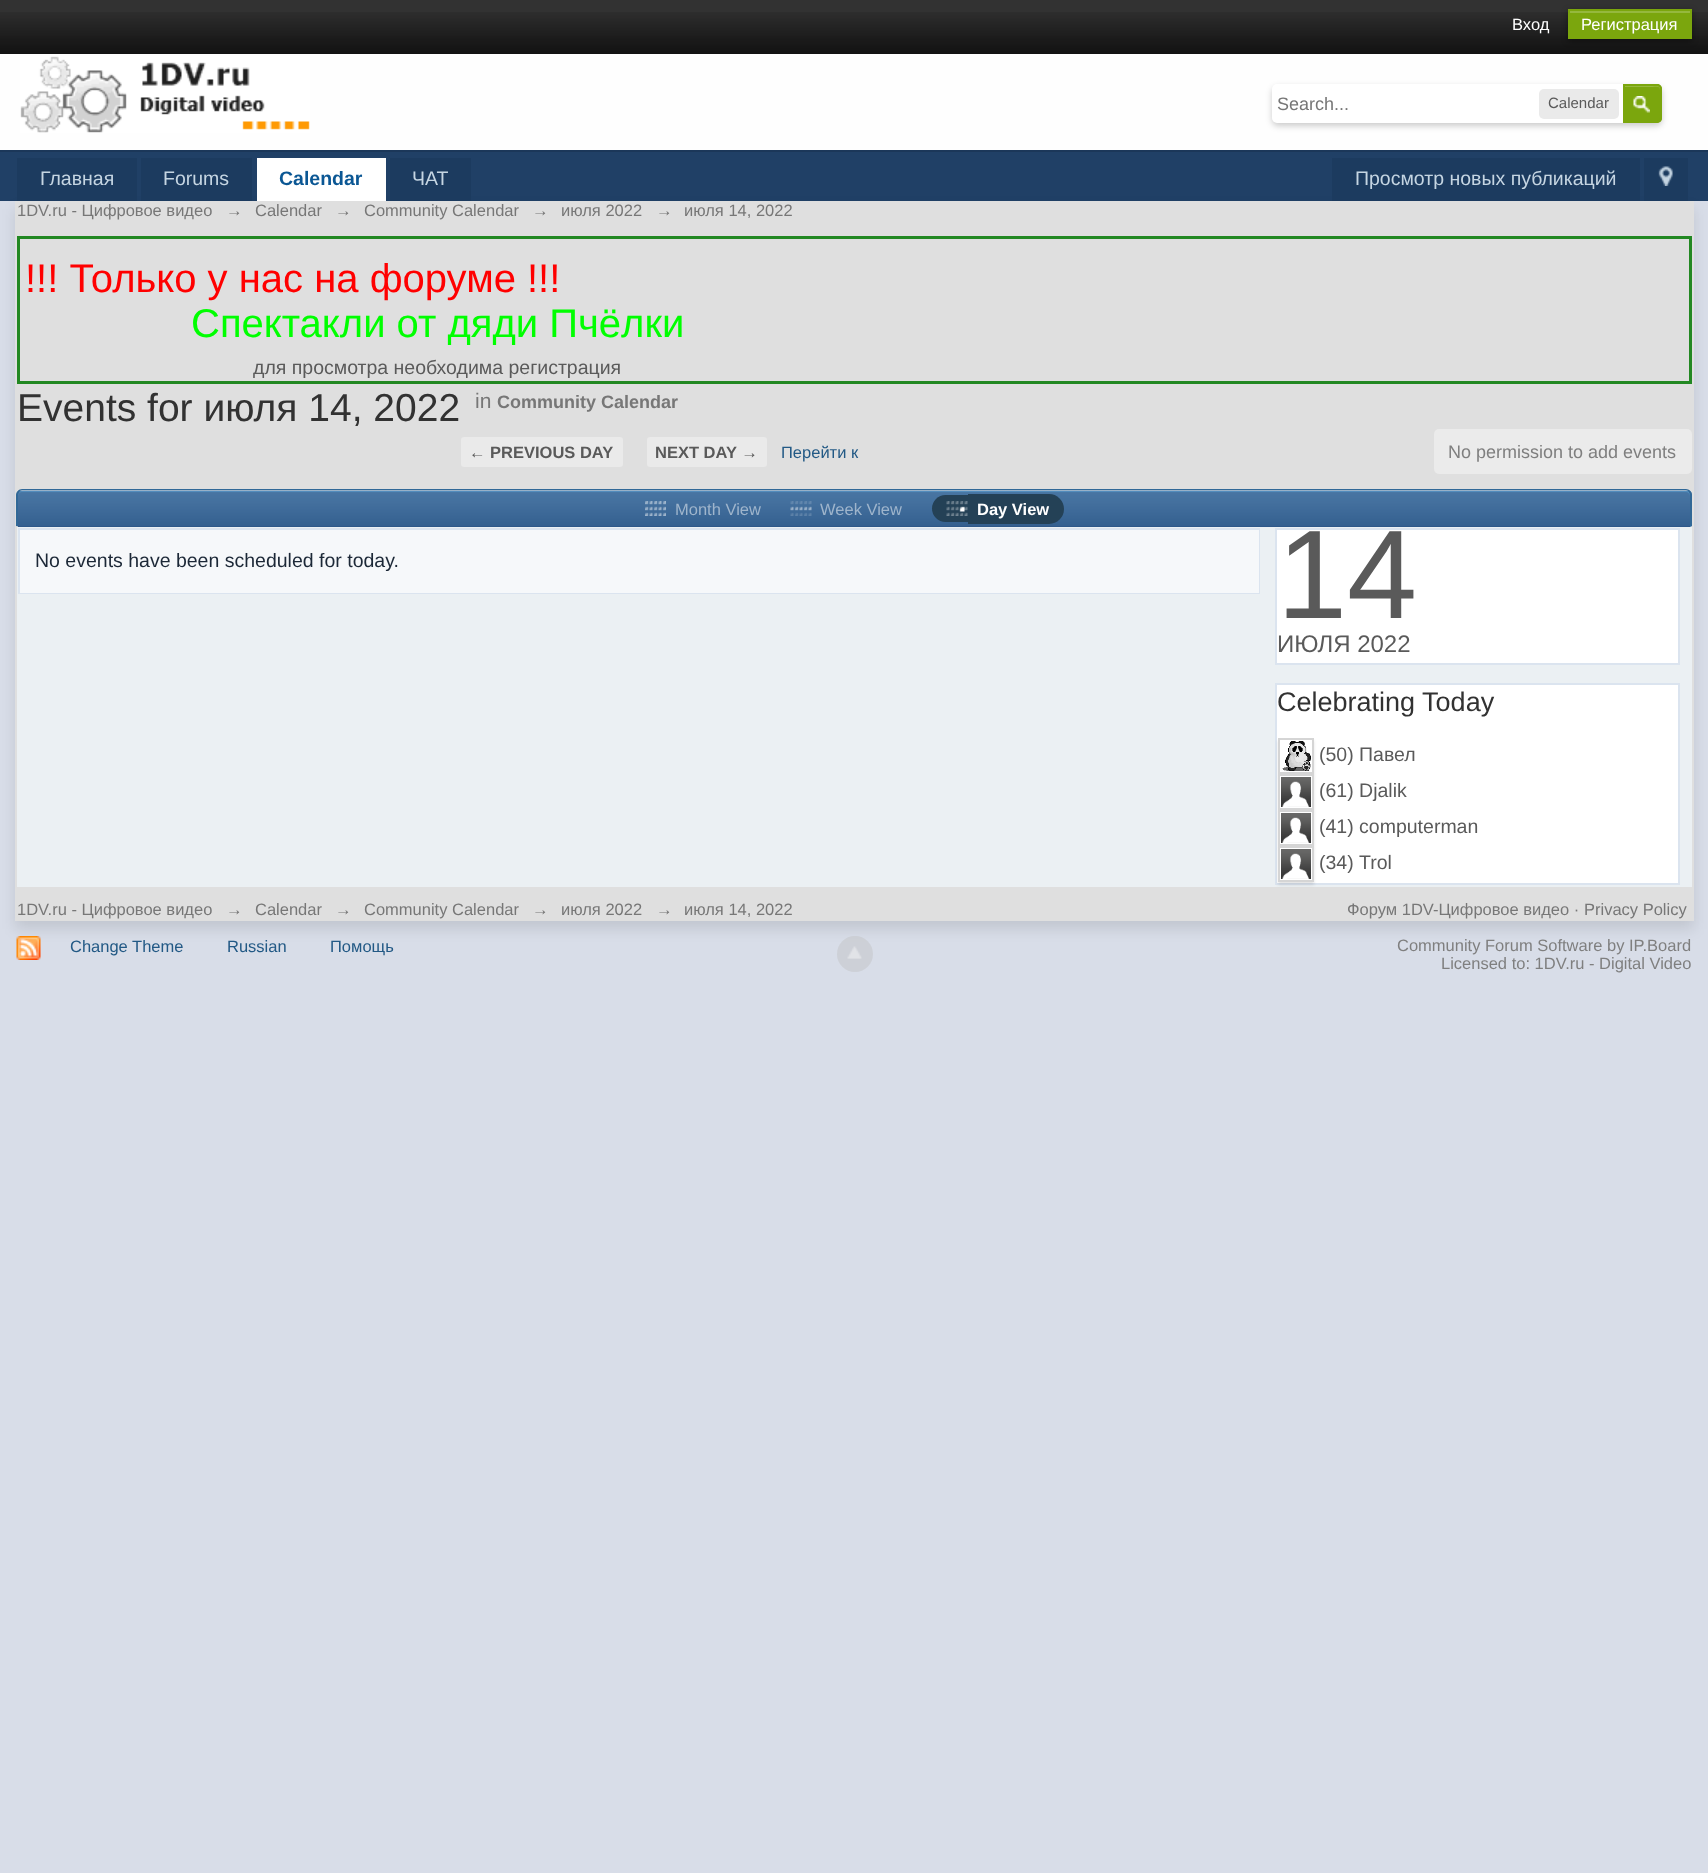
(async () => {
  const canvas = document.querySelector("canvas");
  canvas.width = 1708;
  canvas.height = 1873;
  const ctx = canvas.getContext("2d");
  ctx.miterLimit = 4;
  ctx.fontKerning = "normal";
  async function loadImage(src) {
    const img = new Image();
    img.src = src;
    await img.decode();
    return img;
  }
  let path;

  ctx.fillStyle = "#d8dde8";
  ctx.fillRect(0, 0, 1708, 1873);
  ctx.fillStyle = "#323232";
  ctx.fillRect(0, 0, 1708, 12);
  ctx.drawImage(await loadImage("img/1.png"), 0, 12, 1708, 42);
  ctx.fillStyle = "rgba(0, 0, 0, 0.4)";
  ctx.filter = "blur(3px)";
  ctx.beginPath();
  ctx.rect(1568, 11, 124, 30);
  ctx.fill();
  ctx.filter = "none";
  ctx.fillStyle = "#7ba60d";
  ctx.fillRect(1570, 13, 120, 24);
  ctx.fillStyle = "#95b83d";
  ctx.fillRect(1569, 11, 122, 2);
  ctx.strokeStyle = "#7ba60d";
  ctx.lineWidth = 2;
  ctx.strokeRect(1569, 10, 122, 28);
  ctx.fillStyle = "#fefefe";
  ctx.fillRect(0, 54, 1708, 96);
  ctx.fillStyle = "#1b3759";
  ctx.fillRect(0, 150, 1708, 2);
  ctx.drawImage(await loadImage("img/2.png"), 20, 56, 290, 77);
  ctx.fillStyle = "rgba(0, 0, 0, 0.2)";
  ctx.filter = "blur(3px)";
  ctx.beginPath();
  ctx.roundRect(1272, 87, 390, 39, 6);
  ctx.fill();
  ctx.filter = "none";
  ctx.fillStyle = "#ffffff";
  ctx.beginPath();
  ctx.roundRect(1272, 84, 390, 39, [5, 6, 6, 5]);
  ctx.fill();
  ctx.fillStyle = "#eaeaea";
  ctx.beginPath();
  ctx.roundRect(1539, 89, 80, 30, 5);
  ctx.fill();
  ctx.fillStyle = "#7ba60d";
  ctx.beginPath();
  ctx.roundRect(1623, 84, 39, 39, [0, 5, 5, 0]);
  ctx.fill();
  ctx.drawImage(await loadImage("img/3.png"), 1633, 96, 17, 17);
  ctx.fillStyle = "#95b83d";
  path = new Path2D("M1625 86V87H1652.5C1655.5 87 1660 85.5 1660 90V121.5C1660.5 121 1661 120 1661 119V89C1661 87.5 1659.5 86 1658 86Z");
  ctx.fill(path);
  ctx.beginPath();
  ctx.roundRect(1624, 85, 37, 37, [0, 4, 4, 0]);
  ctx.stroke();
  ctx.fillStyle = "#204066";
  ctx.fillRect(0, 152, 1708, 49);
  ctx.fillStyle = "rgba(0, 0, 0, 0.1)";
  ctx.filter = "blur(7px)";
  ctx.beginPath();
  ctx.rect(15, 209, 1679, 720);
  ctx.fill();
  ctx.filter = "none";
  for (const [x, y, w, h, color] of [
    [17, 158, 120, 43, "#1c3b5f"],
    [141, 158, 111, 43, "#1c3b5f"],
    [257, 158, 129, 43, "#ffffff"],
    [390, 158, 81, 43, "#1c3b5f"],
    [1332, 158, 308, 43, "#1c3b5f"],
    [1644, 158, 44, 43, "#1c3b5f"],
  ]) {
    ctx.fillStyle = color;
    ctx.fillRect(x, y, w, h);
  }
  ctx.drawImage(await loadImage("img/4.png"), 1658, 166, 15, 20);
  ctx.fillStyle = "#dfdfdf";
  ctx.fillRect(15, 201, 1679, 720);
  ctx.strokeStyle = "#228822";
  ctx.lineWidth = 3;
  ctx.strokeRect(18.5, 237.5, 1672, 145);
  ctx.fillStyle = "#eaeaea";
  ctx.beginPath();
  ctx.roundRect(461, 437, 162, 30, 3);
  ctx.fill();
  ctx.beginPath();
  ctx.roundRect(647, 437, 120, 30, 3);
  ctx.fill();
  ctx.fillStyle = "#ebebeb";
  ctx.beginPath();
  ctx.roundRect(1434, 429, 258, 45, 5);
  ctx.fill();
  ctx.fillStyle = "#2c5687";
  ctx.beginPath();
  ctx.roundRect(18, 491, 1673, 36, [5, 5, 0, 0]);
  ctx.fill();
  ctx.drawImage(await loadImage("img/5.png"), 16, 490, 1676, 37);
  ctx.fillStyle = "#528cbc";
  path = new Path2D("M22 492H1686C1688 492 1690 494 1690 496V527H1691V496C1691 493 1689 491 1686 491H23C20 491 18 493 18 496C18 494 20 492 22 492Z");
  ctx.fill(path);
  ctx.fillStyle = "#316897";
  path = new Path2D("M22 489H1686C1689 489 1692 492 1692 495V526H16V495C16 492 19 489 22 489ZM22 490H1686C1688 490 1690 493 1690 495V526H18V495C18 493 20 490 22 490Z");
  ctx.fill(path, "evenodd");
  ctx.drawImage(await loadImage("img/6.png"), 645, 501, 21, 15);
  ctx.drawImage(await loadImage("img/7.png"), 790, 501, 22, 15);
  ctx.fillStyle = "#244156";
  ctx.beginPath();
  ctx.roundRect(932, 495, 36, 27, [13.5, 0, 0, 13.5]);
  ctx.fill();
  ctx.drawImage(await loadImage("img/8.png"), 946, 501, 22, 15);
  ctx.beginPath();
  ctx.roundRect(968, 494, 96, 30, [0, 15, 15, 0]);
  ctx.fill();
  ctx.fillStyle = "#ebf0f3";
  ctx.fillRect(17, 527, 1675, 360);
  ctx.strokeStyle = "#dbe4ef";
  ctx.lineWidth = 2;
  ctx.strokeRect(19, 529, 1240, 64);
  ctx.fillStyle = "#f6f8fa";
  ctx.fillRect(20, 530, 1239, 63);
  ctx.fillStyle = "#ffffff";
  ctx.beginPath();
  ctx.rect(1276, 529, 403, 135);
  ctx.fill();
  ctx.stroke();
  ctx.beginPath();
  ctx.rect(1276, 684, 403, 200);
  ctx.fill();
  ctx.stroke();
  ctx.save();
  path = new Path2D("M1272 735H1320V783H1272ZM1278 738H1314V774H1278Z");
  ctx.clip(path, "evenodd");
  ctx.fillStyle = "rgba(0, 0, 0, 0.1)";
  ctx.filter = "blur(1.5px)";
  ctx.beginPath();
  ctx.rect(1278, 741, 36, 36);
  ctx.fill();
  ctx.filter = "none";
  ctx.restore();
  ctx.strokeStyle = "#d5d5d5";
  ctx.strokeRect(1279, 739, 34, 34);
  ctx.drawImage(await loadImage("img/9.png"), 1282, 741, 29, 30);
  ctx.fillStyle = "rgba(0, 0, 0, 0.1)";
  ctx.filter = "blur(1.5px)";
  ctx.beginPath();
  ctx.rect(1278, 777, 36, 36);
  ctx.fill();
  ctx.filter = "none";
  ctx.fillStyle = "#ffffff";
  ctx.beginPath();
  ctx.rect(1279, 775, 34, 34);
  ctx.fill();
  ctx.stroke();
  ctx.drawImage(await loadImage("img/10.png"), 1281, 777, 30, 30);
  ctx.fillStyle = "rgba(0, 0, 0, 0.1)";
  ctx.filter = "blur(1.5px)";
  ctx.beginPath();
  ctx.rect(1278, 813, 36, 36);
  ctx.fill();
  ctx.filter = "none";
  ctx.fillStyle = "#ffffff";
  ctx.beginPath();
  ctx.rect(1279, 811, 34, 34);
  ctx.fill();
  ctx.stroke();
  ctx.drawImage(await loadImage("img/10.png"), 1281, 813, 30, 30);
  ctx.fillStyle = "rgba(0, 0, 0, 0.1)";
  ctx.filter = "blur(1.5px)";
  ctx.beginPath();
  ctx.rect(1278, 849, 36, 36);
  ctx.fill();
  ctx.filter = "none";
  ctx.fillStyle = "#ffffff";
  ctx.beginPath();
  ctx.rect(1279, 847, 34, 34);
  ctx.fill();
  ctx.stroke();
  ctx.drawImage(await loadImage("img/10.png"), 1281, 849, 30, 30);
  ctx.drawImage(await loadImage("img/11.png"), 16, 936, 25, 24);
  ctx.fillStyle = "rgba(189, 189, 189, 0.4)";
  ctx.beginPath();
  ctx.arc(855, 954, 18, 0, Math.PI * 2);
  ctx.fill();
  ctx.drawImage(await loadImage("img/12.png"), 847, 946, 15, 13);
  ctx.font = "16.5px Liberation Sans";
  ctx.fillStyle = "#ffffff";
  ctx.fillText("Вход", 1512, 30);
  ctx.fillText("Регистрация", 1581, 30);
  ctx.font = "18px Liberation Sans";
  ctx.fillStyle = "#777777";
  ctx.fillText("Search...", 1277, 110);
  ctx.font = "15px Liberation Sans";
  ctx.fillStyle = "#5a5a5a";
  ctx.fillText("Calendar", 1548, 108);
  ctx.font = "19.5px Liberation Sans";
  ctx.fillStyle = "#c5d5e2";
  ctx.fillText("Главная", 40, 185);
  ctx.fillText("Forums", 163, 185);
  ctx.font = "bold 19.5px Liberation Sans";
  ctx.fillStyle = "#0b5794";
  ctx.fillText("Calendar", 279, 185);
  ctx.font = "19.5px Liberation Sans";
  ctx.fillStyle = "#c5d5e2";
  ctx.fillText("ЧАТ", 412, 185);
  ctx.fillText("Просмотр новых публикаций", 1355, 185);
  ctx.font = "16.5px Liberation Sans";
  ctx.fillStyle = "#777777";
  for (const [text, x, y] of [
    ["1DV.ru - Цифровое видео", 17, 216],
    ["→", 226, 216],
    ["Calendar", 255, 216],
    ["→", 335, 216],
    ["Community Calendar", 364, 216],
    ["→", 532, 216],
    ["июля 2022", 561, 216],
    ["→", 656, 216],
    ["июля 14, 2022", 684, 216],
  ]) {
    ctx.fillText(text, x, y);
  }
  ctx.font = "40px Liberation Sans";
  ctx.fillStyle = "#ff0000";
  ctx.fillText("!!! Только у нас на форуме !!!", 25, 292);
  ctx.fillStyle = "#00ff00";
  ctx.fillText("Спектакли от дяди Пчёлки", 191, 337);
  ctx.font = "19.5px Liberation Sans";
  ctx.fillStyle = "#5a5a5a";
  ctx.fillText("для просмотра необходима регистрация", 253, 374);
  ctx.font = "39px Liberation Sans";
  ctx.fillStyle = "#323232";
  ctx.fillText("Events for июля 14, 2022", 17, 421);
  ctx.font = "21px Liberation Sans";
  ctx.fillStyle = "#777777";
  ctx.fillText("in", 475, 408);
  ctx.font = "bold 18px Liberation Sans";
  ctx.fillText("Community Calendar", 497, 408);
  ctx.font = "bold 16.5px Liberation Sans";
  ctx.fillStyle = "#5a5a5a";
  ctx.fillText("← PREVIOUS DAY", 469, 458);
  ctx.fillText("NEXT DAY →", 655, 458);
  ctx.font = "16.5px Liberation Sans";
  ctx.fillStyle = "#225985";
  ctx.fillText("Перейти к", 781, 458);
  ctx.font = "18px Liberation Sans";
  ctx.fillStyle = "#7f7f7f";
  ctx.fillText("No permission to add events", 1448, 458);
  ctx.font = "16.5px Liberation Sans";
  ctx.fillStyle = "#9fb5cc";
  ctx.fillText("Month View", 675, 515);
  ctx.fillText("Week View", 820, 515);
  ctx.font = "bold 16.5px Liberation Sans";
  ctx.fillStyle = "#ffffff";
  ctx.fillText("Day View", 977, 515);
  ctx.font = "19.5px Liberation Sans";
  ctx.fillStyle = "#1c2837";
  ctx.fillText("No events have been scheduled for today.", 35, 567);
  ctx.font = "126px Liberation Sans";
  ctx.fillStyle = "#5a5a5a";
  ctx.fillText("14", 1277, 618);
  ctx.font = "24px Liberation Sans";
  ctx.fillText("ИЮЛЯ 2022", 1277, 652);
  ctx.font = "27px Liberation Sans";
  ctx.fillStyle = "#323232";
  ctx.fillText("Celebrating Today", 1277, 711);
  ctx.font = "19.5px Liberation Sans";
  ctx.fillStyle = "#5a5a5a";
  for (const [text, x, y] of [
    ["(50) Павел", 1319, 761],
    ["(61) Djalik", 1319, 797],
    ["(41) computerman", 1319, 833],
    ["(34)", 1319, 869],
    ["Trol", 1359, 869],
  ]) {
    ctx.fillText(text, x, y);
  }
  ctx.font = "16.5px Liberation Sans";
  ctx.fillStyle = "#777777";
  for (const [text, x, y] of [
    ["1DV.ru - Цифровое видео", 17, 915],
    ["→", 226, 915],
    ["Calendar", 255, 915],
    ["→", 335, 915],
    ["Community Calendar", 364, 915],
    ["→", 532, 915],
    ["июля 2022", 561, 915],
    ["→", 656, 915],
    ["июля 14, 2022", 684, 915],
    ["Форум 1DV-Цифровое видео ·", 1347, 915],
    ["Privacy Policy", 1584, 915],
  ]) {
    ctx.fillText(text, x, y);
  }
  ctx.fillStyle = "#225985";
  for (const [text, x, y] of [
    ["Change Theme", 70, 952],
    ["Russian", 227, 952],
    ["Помощь", 330, 952],
  ]) {
    ctx.fillText(text, x, y);
  }
  ctx.fillStyle = "#7f7f7f";
  ctx.fillText("Community Forum Software by IP.Board", 1397, 951);
  ctx.fillText("Licensed to: 1DV.ru - Digital Video", 1441, 969);
})();
